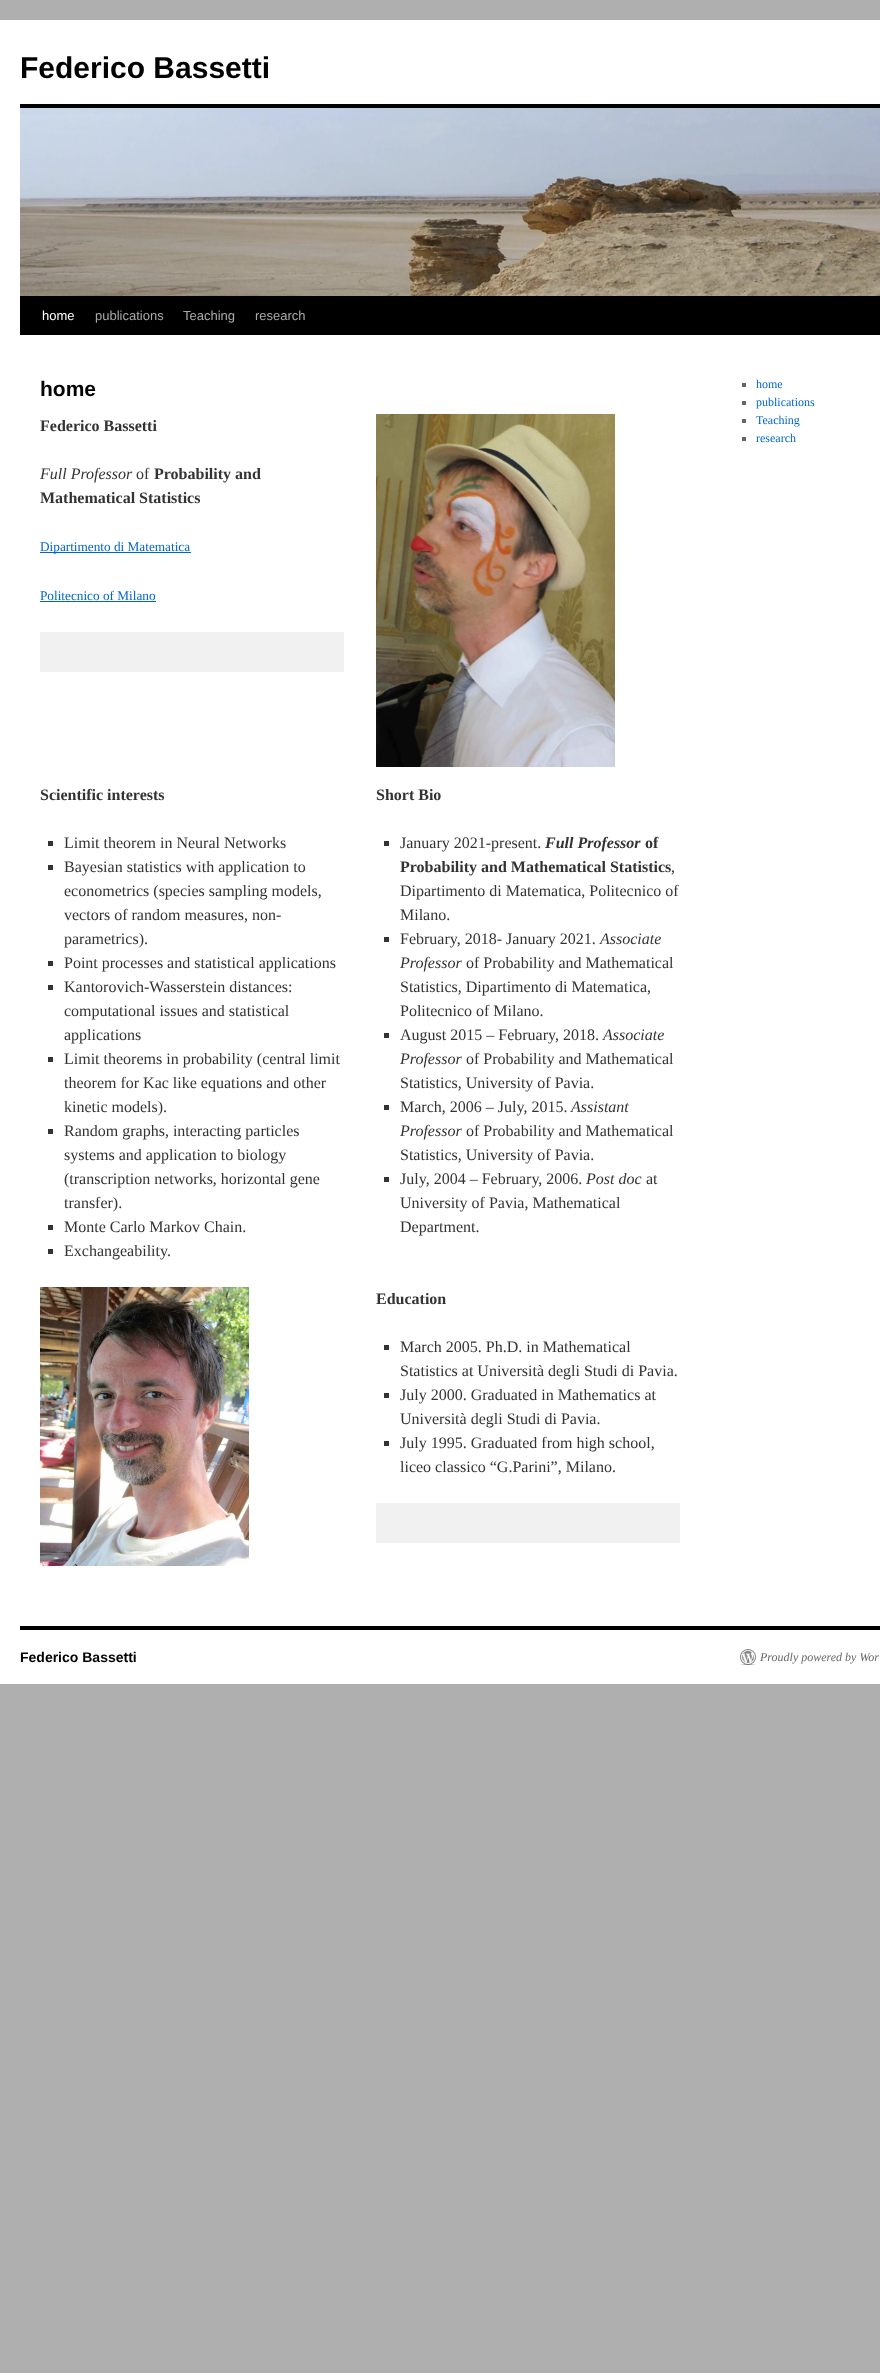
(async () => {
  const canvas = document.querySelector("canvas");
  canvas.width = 880;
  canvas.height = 2373;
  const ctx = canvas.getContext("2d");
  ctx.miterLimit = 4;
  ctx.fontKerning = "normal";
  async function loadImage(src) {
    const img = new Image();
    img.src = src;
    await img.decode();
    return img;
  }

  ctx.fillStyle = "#afafaf";
  ctx.fillRect(0, 0, 880, 2373);
  for (const [x, y, w, h, color] of [
    [0, 20, 880, 1664, "#ffffff"],
    [20, 104, 860, 4, "#000000"],
    [20, 296, 860, 39, "#000000"],
  ]) {
    ctx.fillStyle = color;
    ctx.fillRect(x, y, w, h);
  }
  ctx.drawImage(await loadImage("img/1.png"), 20, 108, 860, 188);
  for (const [x, y, w, h, color] of [
    [40, 552, 151, 1, "#0066cc"],
    [40, 601, 116, 1, "#0066cc"],
    [40, 632, 304, 40, "#f1f1f1"],
  ]) {
    ctx.fillStyle = color;
    ctx.fillRect(x, y, w, h);
  }
  ctx.drawImage(await loadImage("img/2.png"), 376, 414, 239, 353);
  for (const [x, y, w, h, color] of [
    [48, 841, 5, 5, "#333333"],
    [48, 865, 5, 5, "#333333"],
    [48, 961, 5, 5, "#333333"],
    [48, 985, 5, 5, "#333333"],
    [48, 1057, 5, 5, "#333333"],
    [48, 1129, 5, 5, "#333333"],
    [48, 1225, 5, 5, "#333333"],
    [48, 1249, 5, 5, "#333333"],
    [384, 841, 5, 5, "#333333"],
    [384, 937, 5, 5, "#333333"],
    [384, 1033, 5, 5, "#333333"],
    [384, 1105, 5, 5, "#333333"],
    [384, 1177, 5, 5, "#333333"],
  ]) {
    ctx.fillStyle = color;
    ctx.fillRect(x, y, w, h);
  }
  ctx.drawImage(await loadImage("img/3.png"), 40, 1287, 209, 279);
  for (const [x, y, w, h, color] of [
    [384, 1345, 5, 5, "#333333"],
    [384, 1393, 5, 5, "#333333"],
    [384, 1441, 5, 5, "#333333"],
    [376, 1503, 304, 40, "#f1f1f1"],
    [742, 383, 4, 4, "#666666"],
    [742, 401, 4, 4, "#666666"],
    [742, 419, 4, 4, "#666666"],
    [742, 437, 4, 4, "#666666"],
    [20, 1626, 860, 4, "#000000"],
  ]) {
    ctx.fillStyle = color;
    ctx.fillRect(x, y, w, h);
  }
  ctx.drawImage(await loadImage("img/4.png"), 740, 1649, 16, 16);
  ctx.font = "bold 30px Liberation Sans";
  ctx.fillText("Federico Bassetti", 20, 78);
  ctx.font = "13px Liberation Sans";
  ctx.fillStyle = "#ffffff";
  ctx.fillText("home", 42, 320);
  ctx.fillStyle = "#aaaaaa";
  for (const [text, x, y] of [
    ["publications", 95, 320],
    ["Teaching", 183, 320],
    ["research", 255, 320],
  ]) {
    ctx.fillText(text, x, y);
  }
  ctx.font = "bold 21px Liberation Sans";
  ctx.fillStyle = "#000000";
  ctx.fillText("home", 40, 396);
  ctx.font = "bold 16px Liberation Serif";
  ctx.fillStyle = "#333333";
  ctx.fillText("Federico Bassetti", 40, 431);
  ctx.font = "italic 16px Liberation Serif";
  ctx.fillText("Full Professor", 40, 479);
  ctx.font = "16px Liberation Serif";
  ctx.fillText("of", 136, 479);
  ctx.font = "bold 16px Liberation Serif";
  ctx.fillText("Probability and", 154, 479);
  ctx.fillText("Mathematical Statistics", 40, 503);
  ctx.font = "13.25px Liberation Serif";
  ctx.fillStyle = "#0066cc";
  ctx.fillText("Dipartimento di Matematica", 40, 551);
  ctx.fillText("Politecnico of Milano", 40, 600);
  ctx.font = "bold 16px Liberation Serif";
  ctx.fillStyle = "#333333";
  ctx.fillText("Scientific interests", 40, 800);
  ctx.font = "16px Liberation Serif";
  for (const [text, x, y] of [
    ["Limit theorem in Neural Networks", 64, 848],
    ["Bayesian statistics with application to", 64, 872],
    ["econometrics (species sampling models,", 64, 896],
    ["vectors of random measures, non-", 64, 920],
    ["parametrics).", 64, 944],
    ["Point processes and statistical applications", 64, 968],
    ["Kantorovich-Wasserstein distances:", 64, 992],
    ["computational issues and statistical", 64, 1016],
    ["applications", 64, 1040],
    ["Limit theorems in probability (central limit", 64, 1064],
    ["theorem for Kac like equations and other", 64, 1088],
    ["kinetic models).", 64, 1112],
    ["Random graphs, interacting particles", 64, 1136],
    ["systems and application to biology", 64, 1160],
    ["(transcription networks, horizontal gene", 64, 1184],
    ["transfer).", 64, 1208],
    ["Monte Carlo Markov Chain.", 64, 1232],
    ["Exchangeability.", 64, 1256],
  ]) {
    ctx.fillText(text, x, y);
  }
  ctx.font = "bold 16px Liberation Serif";
  ctx.fillText("Short Bio", 376, 800);
  ctx.font = "16px Liberation Serif";
  ctx.fillText("January 2021-present.", 400, 848);
  ctx.font = "italic bold 16px Liberation Serif";
  ctx.fillText("Full Professor", 545, 848);
  ctx.font = "bold 16px Liberation Serif";
  ctx.fillText("of", 645, 848);
  ctx.fillText("Probability and Mathematical Statistics", 400, 872);
  ctx.font = "16px Liberation Serif";
  for (const [text, x, y] of [
    [",", 671, 872],
    ["Dipartimento di Matematica, Politecnico of", 400, 896],
    ["Milano.", 400, 920],
    ["February, 2018- January 2021.", 400, 944],
  ]) {
    ctx.fillText(text, x, y);
  }
  ctx.font = "italic 16px Liberation Serif";
  ctx.fillText("Associate", 600, 944);
  ctx.fillText("Professor", 400, 968);
  ctx.font = "16px Liberation Serif";
  for (const [text, x, y] of [
    ["of Probability and Mathematical", 466, 968],
    ["Statistics, Dipartimento di Matematica,", 400, 992],
    ["Politecnico of Milano.", 400, 1016],
    ["August 2015 – February, 2018.", 400, 1040],
  ]) {
    ctx.fillText(text, x, y);
  }
  ctx.font = "italic 16px Liberation Serif";
  ctx.fillText("Associate", 603, 1040);
  ctx.fillText("Professor", 400, 1064);
  ctx.font = "16px Liberation Serif";
  for (const [text, x, y] of [
    ["of Probability and Mathematical", 466, 1064],
    ["Statistics, University of Pavia.", 400, 1088],
    ["March, 2006 – July, 2015.", 400, 1112],
  ]) {
    ctx.fillText(text, x, y);
  }
  ctx.font = "italic 16px Liberation Serif";
  ctx.fillText("Assistant", 571, 1112);
  ctx.fillText("Professor", 400, 1136);
  ctx.font = "16px Liberation Serif";
  for (const [text, x, y] of [
    ["of Probability and Mathematical", 466, 1136],
    ["Statistics, University of Pavia.", 400, 1160],
    ["July, 2004 – February, 2006.", 400, 1184],
  ]) {
    ctx.fillText(text, x, y);
  }
  ctx.font = "italic 16px Liberation Serif";
  ctx.fillText("Post doc", 586, 1184);
  ctx.font = "16px Liberation Serif";
  for (const [text, x, y] of [
    ["at", 646, 1184],
    ["University of Pavia, Mathematical", 400, 1208],
    ["Department.", 400, 1232],
  ]) {
    ctx.fillText(text, x, y);
  }
  ctx.font = "bold 16px Liberation Serif";
  ctx.fillText("Education", 376, 1304);
  ctx.font = "16px Liberation Serif";
  for (const [text, x, y] of [
    ["March 2005. Ph.D. in Mathematical", 400, 1352],
    ["Statistics at Università degli Studi di Pavia.", 400, 1376],
    ["July 2000. Graduated in Mathematics at", 400, 1400],
    ["Università degli Studi di Pavia.", 400, 1424],
    ["July 1995. Graduated from high school,", 400, 1448],
    ["liceo classico “G.Parini”, Milano.", 400, 1472],
  ]) {
    ctx.fillText(text, x, y);
  }
  ctx.font = "12px Liberation Serif";
  ctx.fillStyle = "#0066cc";
  for (const [text, x, y] of [
    ["home", 756, 388],
    ["publications", 756, 406],
    ["Teaching", 756, 424],
    ["research", 756, 442],
  ]) {
    ctx.fillText(text, x, y);
  }
  ctx.font = "bold 14px Liberation Sans";
  ctx.fillStyle = "#000000";
  ctx.fillText("Federico Bassetti", 20, 1662);
  ctx.font = "italic 12px Liberation Serif";
  ctx.fillStyle = "#666666";
  ctx.fillText("Proudly powered by Wor", 760, 1661);
})();
